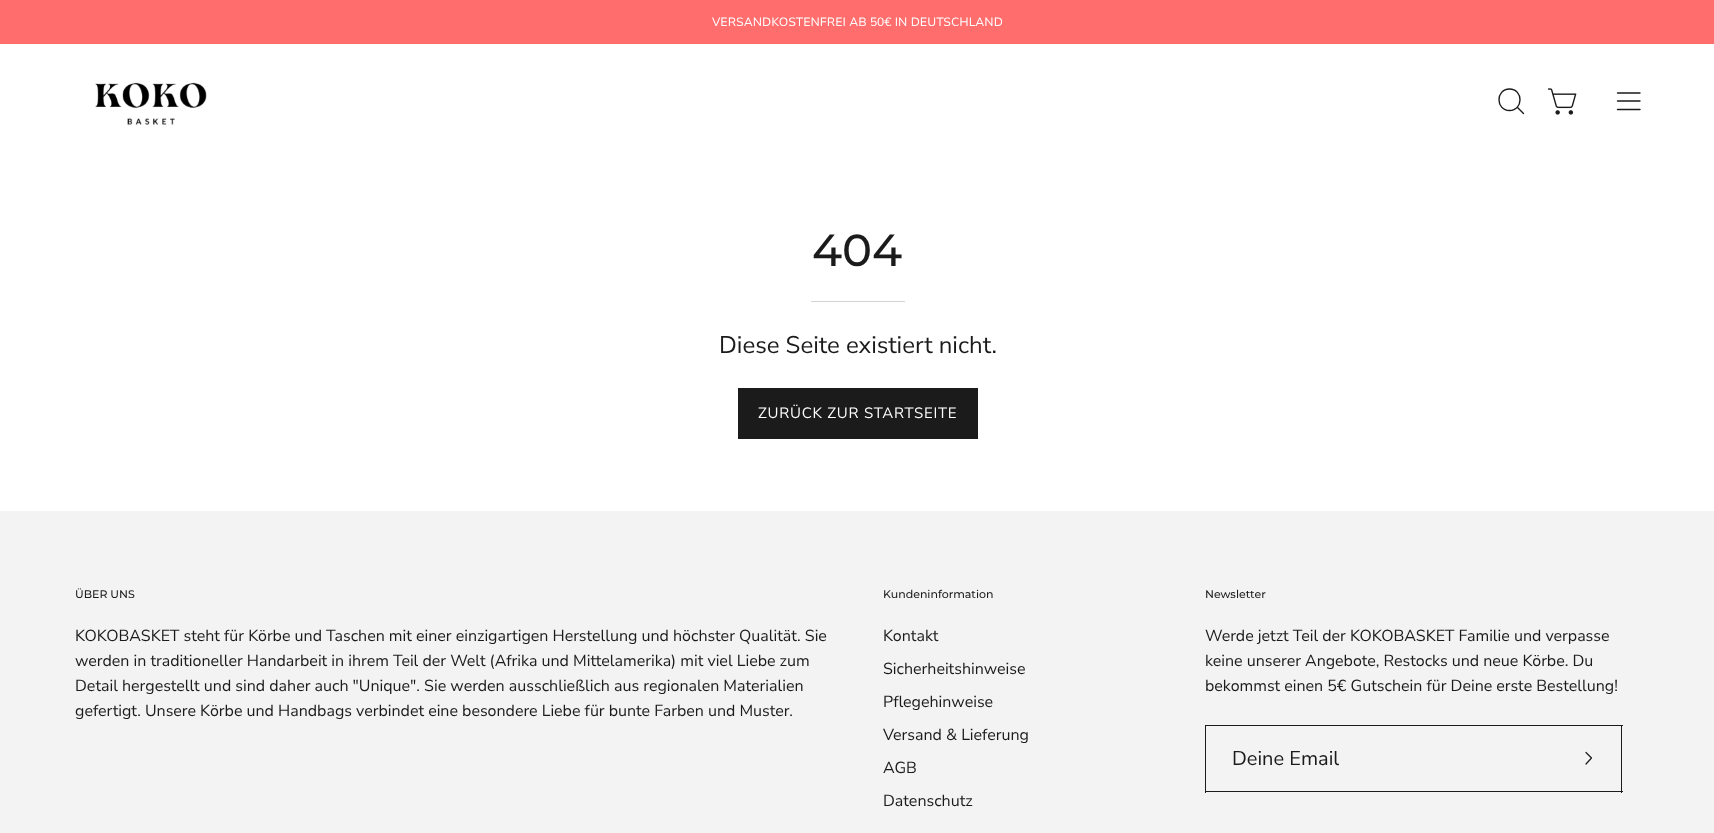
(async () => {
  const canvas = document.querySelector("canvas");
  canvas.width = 1714;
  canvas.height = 833;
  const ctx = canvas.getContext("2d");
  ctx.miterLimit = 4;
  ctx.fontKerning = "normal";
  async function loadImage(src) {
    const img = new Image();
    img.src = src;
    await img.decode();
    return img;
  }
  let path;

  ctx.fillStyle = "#ffffff";
  ctx.fillRect(0, 0, 1714, 833);
  ctx.fillStyle = "#ff6d6d";
  ctx.fillRect(0, 0, 1714, 44);
  ctx.drawImage(await loadImage("img/1.png"), 95, 82, 112, 43);
  path = new Path2D("M1509.5 110.5C1523.5 110.5 1523.5 89 1509.5 89C1495.5 89 1495.5 110.5 1509.5 110.5ZM1517.5 107.5L1523.5 113.5");
  ctx.strokeStyle = "#1c1b1b";
  ctx.lineWidth = 1.4;
  ctx.lineCap = "round";
  ctx.lineJoin = "round";
  ctx.stroke(path);
  ctx.drawImage(await loadImage("img/2.png"), 1548, 88, 29, 27);
  path = new Path2D("M1617.5 101H1640M1617.5 93H1640M1617.5 109.5H1640");
  ctx.stroke(path);
  for (const [x, y, w, h, color] of [
    [811, 301, 94, 1, "#d3d3d3"],
    [738, 388, 240, 51, "#1c1b1b"],
    [0, 511, 1714, 322, "#f3f3f3"],
    [1205, 725, 418, 1, "#1c1b1b"],
    [1205, 791, 350, 1, "#1c1b1b"],
    [1205, 725, 1, 68, "#1c1b1b"],
    [1621, 725, 1, 68, "#1c1b1b"],
    [1555, 791, 68, 1, "#1c1b1b"],
  ]) {
    ctx.fillStyle = color;
    ctx.fillRect(x, y, w, h);
  }
  path = new Path2D("M1586 752.5L1591.5 758L1586 764");
  ctx.lineWidth = 1.2;
  ctx.stroke(path);
  ctx.font = "12px 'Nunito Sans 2'";
  ctx.fillStyle = "#ffffff";
  ctx.fillText("VERSANDKOSTENFREI AB 50€ IN DEUTSCHLAND", 712, 26);
  ctx.font = "500 45px Montserrat";
  ctx.fillStyle = "#1c1b1b";
  ctx.fillText("404", 812, 266);
  ctx.font = "24px Nunito Sans";
  ctx.fillText("Diese Seite existiert nicht.", 719, 353);
  ctx.letterSpacing = "0.75px";
  ctx.font = "15px Nunito Sans";
  ctx.fillStyle = "#ffffff";
  ctx.fillText("ZURÜCK ZUR STARTSEITE", 758, 418);
  ctx.letterSpacing = "0px";
  ctx.font = "500 11px Montserrat";
  ctx.fillStyle = "#1c1b1b";
  ctx.fillText("ÜBER UNS", 75, 598);
  ctx.font = "16px Nunito Sans";
  for (const [text, x, y] of [
    ["KOKOBASKET steht für Körbe und Taschen mit einer einzigartigen Herstellung und höchster Qualität. Sie", 75, 641],
    ["werden in traditioneller Handarbeit in ihrem Teil der Welt (Afrika und Mittelamerika) mit viel Liebe zum", 75, 666],
    ["Detail hergestellt und sind daher auch \"Unique\". Sie werden ausschließlich aus regionalen Materialien", 75, 691],
    ["gefertigt. Unsere Körbe und Handbags verbindet eine besondere Liebe für bunte Farben und Muster.", 75, 716],
  ]) {
    ctx.fillText(text, x, y);
  }
  ctx.font = "500 11px Montserrat";
  ctx.fillText("Kundeninformation", 883, 598);
  ctx.font = "16px Nunito Sans";
  for (const [text, x, y] of [
    ["Kontakt", 883, 641],
    ["Sicherheitshinweise", 883, 674],
    ["Pflegehinweise", 883, 707],
    ["Versand & Lieferung", 883, 740],
    ["AGB", 883, 773],
    ["Datenschutz", 883, 806],
  ]) {
    ctx.fillText(text, x, y);
  }
  ctx.font = "500 11px Montserrat";
  ctx.fillText("Newsletter", 1205, 598);
  ctx.font = "16px Nunito Sans";
  for (const [text, x, y] of [
    ["Werde jetzt Teil der KOKOBASKET Familie und verpasse", 1205, 641],
    ["keine unserer Angebote, Restocks und neue Körbe. Du", 1205, 666],
    ["bekommst einen 5€ Gutschein für Deine erste Bestellung!", 1205, 691],
  ]) {
    ctx.fillText(text, x, y);
  }
  ctx.font = "20px Nunito Sans";
  ctx.fillText("Deine Email", 1232, 765);
})();
